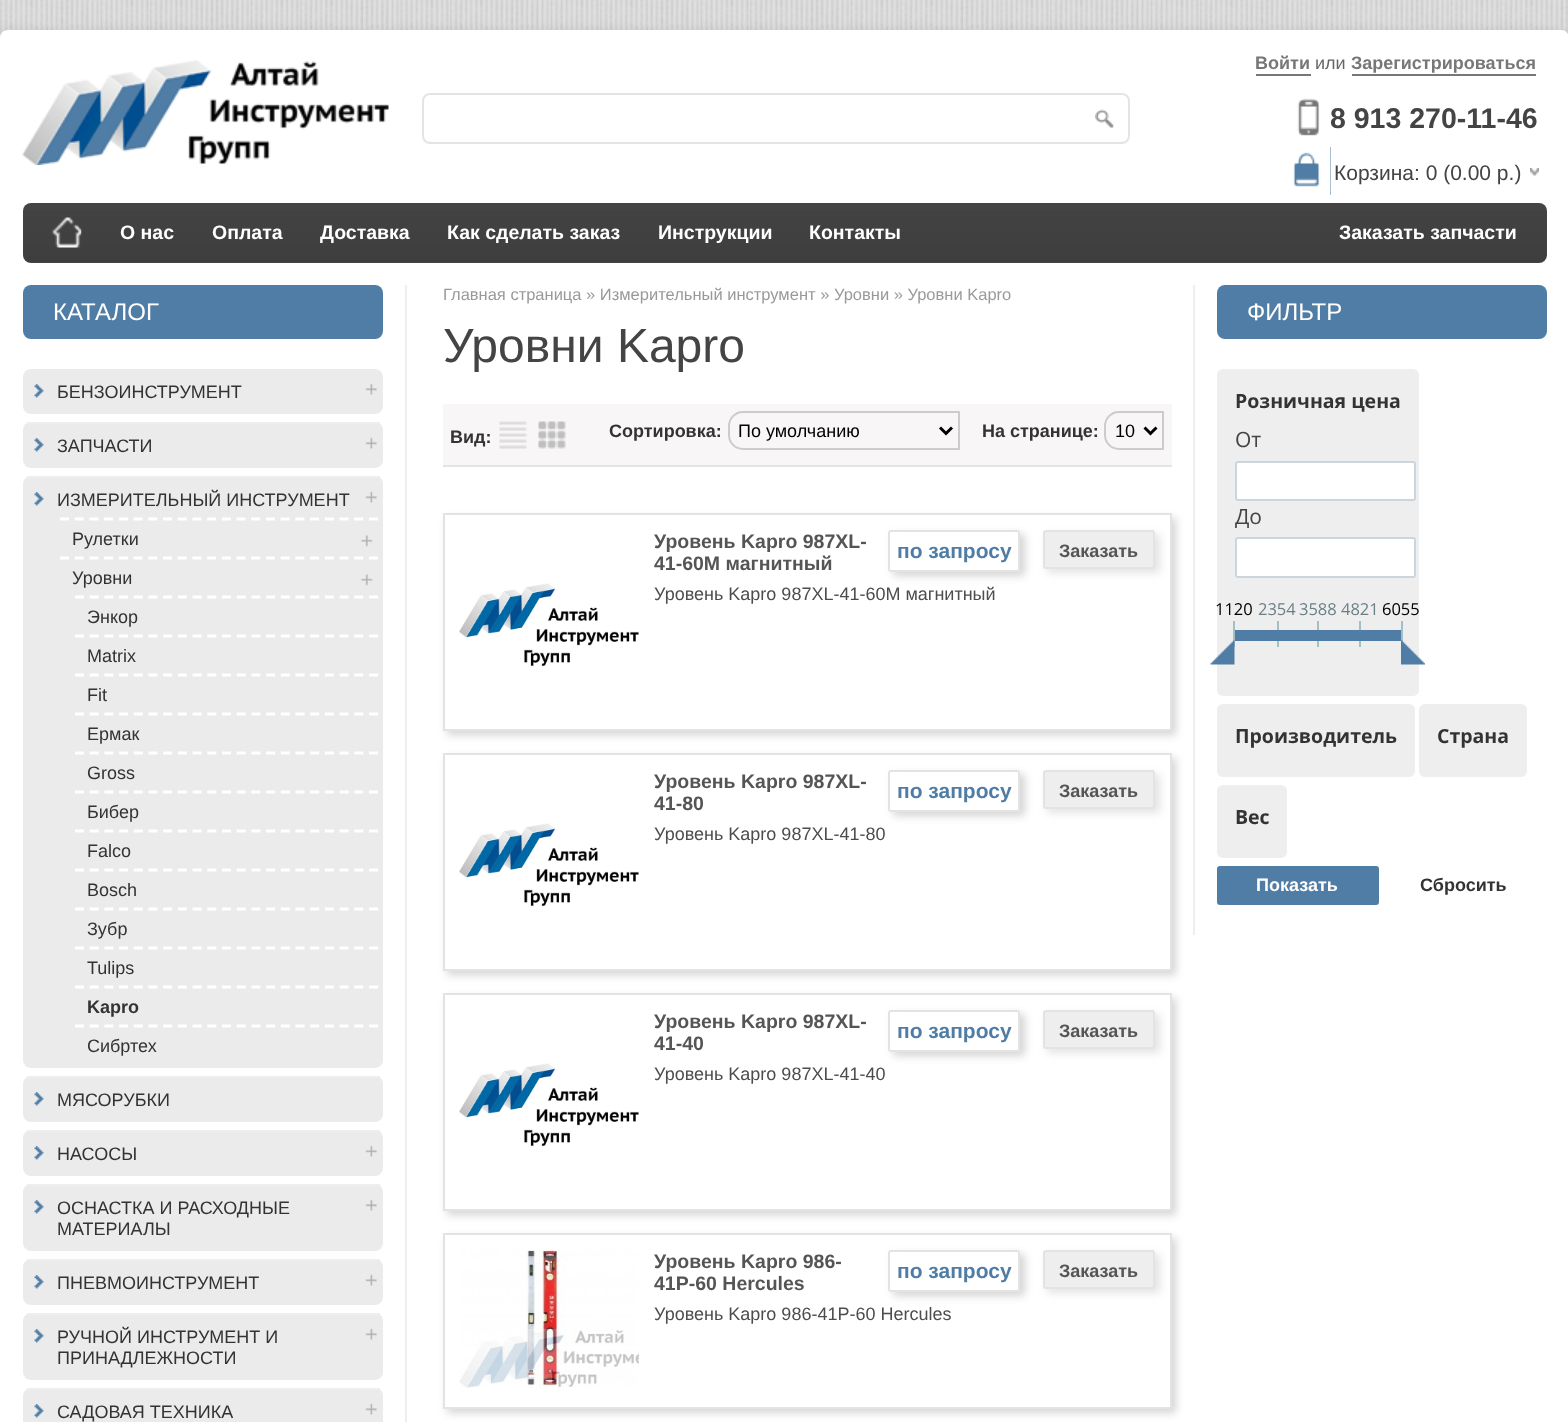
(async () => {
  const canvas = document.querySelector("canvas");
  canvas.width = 1568;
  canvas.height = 1422;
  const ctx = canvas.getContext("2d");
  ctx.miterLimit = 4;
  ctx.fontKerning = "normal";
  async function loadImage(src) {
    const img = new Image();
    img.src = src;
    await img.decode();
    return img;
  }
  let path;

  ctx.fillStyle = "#dcdcdc";
  ctx.fillRect(0, 0, 1568, 1422);
  ctx.drawImage(await loadImage("img/1.png"), 0, 0, 1568, 38);
  ctx.fillStyle = "rgba(0, 0, 0, 0.08)";
  ctx.filter = "blur(6px)";
  ctx.beginPath();
  ctx.roundRect(0, 30, 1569, 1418, 8);
  ctx.fill();
  ctx.filter = "none";
  ctx.fillStyle = "#ffffff";
  path = new Path2D("M8 30H1561C1565.5 30 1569 33.5 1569 38V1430H0V38C0 33.5 3.5 30 8 30Z");
  ctx.fill(path);
  ctx.drawImage(await loadImage("img/2.png"), 22, 60, 367, 105);
  ctx.beginPath();
  ctx.roundRect(423, 94, 706, 49, 7);
  ctx.strokeStyle = "#e4e4e4";
  ctx.lineWidth = 2;
  ctx.stroke();
  ctx.drawImage(await loadImage("img/3.png"), 1095, 109, 19, 19);
  ctx.fillStyle = "#777777";
  ctx.fillRect(1256, 74, 55, 2);
  ctx.fillRect(1352, 74, 184, 2);
  ctx.drawImage(await loadImage("img/4.png"), 1297, 98, 23, 38);
  ctx.fillStyle = "#507da5";
  ctx.fillRect(1292, 147, 39, 48);
  ctx.drawImage(await loadImage("img/5.png"), 1283, 147, 48, 48);
  ctx.drawImage(await loadImage("img/6.png"), 1530, 168, 9, 8);
  ctx.fillStyle = "#444444";
  ctx.beginPath();
  ctx.roundRect(23, 203, 1524, 60, 8);
  ctx.fill();
  ctx.drawImage(await loadImage("img/7.png"), 23, 210, 1523, 52);
  ctx.drawImage(await loadImage("img/8.png"), 52, 217, 30, 31);
  ctx.fillStyle = "#eeeeee";
  ctx.fillRect(405, 285, 2, 1137);
  ctx.fillStyle = "#507da5";
  ctx.beginPath();
  ctx.roundRect(23, 285, 360, 54, 8);
  ctx.fill();
  ctx.fillStyle = "#ebebeb";
  ctx.beginPath();
  ctx.roundRect(23, 369, 360, 45, 8);
  ctx.fill();
  ctx.drawImage(await loadImage("img/9.png"), 34, 384, 10, 14);
  ctx.drawImage(await loadImage("img/10.png"), 365, 383, 12, 12);
  ctx.beginPath();
  ctx.roundRect(23, 422, 360, 46, 8);
  ctx.fill();
  ctx.drawImage(await loadImage("img/9.png"), 34, 438, 10, 14);
  ctx.fillStyle = "#eeeeee";
  ctx.fillRect(27, 422, 353, 2);
  ctx.drawImage(await loadImage("img/10.png"), 365, 437, 12, 12);
  ctx.fillStyle = "#ebebeb";
  ctx.beginPath();
  ctx.roundRect(23, 476, 360, 592, 8);
  ctx.fill();
  ctx.drawImage(await loadImage("img/9.png"), 34, 492, 10, 14);
  ctx.fillStyle = "#eeeeee";
  ctx.fillRect(27, 476, 353, 2);
  ctx.drawImage(await loadImage("img/10.png"), 365, 491, 12, 12);
  path = new Path2D("M60 519H378");
  ctx.strokeStyle = "#ffffff";
  ctx.lineWidth = 3;
  ctx.setLineDash([9, 5.71]);
  ctx.stroke(path);
  ctx.drawImage(await loadImage("img/11.png"), 361, 535, 12, 12);
  path = new Path2D("M60 558H378");
  ctx.stroke(path);
  ctx.drawImage(await loadImage("img/11.png"), 361, 574, 12, 12);
  path = new Path2D("M75 597H378");
  ctx.setLineDash([9, 5.7]);
  ctx.stroke(path);
  path = new Path2D("M75 636H378");
  ctx.stroke(path);
  path = new Path2D("M75 675H378");
  ctx.stroke(path);
  path = new Path2D("M75 714H378");
  ctx.stroke(path);
  path = new Path2D("M75 753H378");
  ctx.stroke(path);
  path = new Path2D("M75 792H378");
  ctx.stroke(path);
  path = new Path2D("M75 831H378");
  ctx.stroke(path);
  path = new Path2D("M75 870H378");
  ctx.stroke(path);
  path = new Path2D("M75 909H378");
  ctx.stroke(path);
  path = new Path2D("M75 948H378");
  ctx.stroke(path);
  path = new Path2D("M75 987H378");
  ctx.stroke(path);
  path = new Path2D("M75 1026H378");
  ctx.stroke(path);
  ctx.fillStyle = "#ebebeb";
  ctx.beginPath();
  ctx.roundRect(23, 1076, 360, 46, 8);
  ctx.fill();
  ctx.drawImage(await loadImage("img/9.png"), 34, 1092, 10, 14);
  ctx.fillStyle = "#eeeeee";
  ctx.fillRect(27, 1076, 353, 2);
  ctx.fillStyle = "#ebebeb";
  ctx.beginPath();
  ctx.roundRect(23, 1130, 360, 46, 8);
  ctx.fill();
  ctx.drawImage(await loadImage("img/9.png"), 34, 1146, 10, 14);
  ctx.fillStyle = "#eeeeee";
  ctx.fillRect(27, 1130, 353, 2);
  ctx.drawImage(await loadImage("img/10.png"), 365, 1145, 12, 12);
  ctx.fillStyle = "#ebebeb";
  ctx.beginPath();
  ctx.roundRect(23, 1184, 360, 67, 8);
  ctx.fill();
  ctx.drawImage(await loadImage("img/9.png"), 34, 1200, 10, 14);
  ctx.fillStyle = "#eeeeee";
  ctx.fillRect(27, 1184, 353, 2);
  ctx.drawImage(await loadImage("img/10.png"), 365, 1199, 12, 12);
  ctx.fillStyle = "#ebebeb";
  ctx.beginPath();
  ctx.roundRect(23, 1259, 360, 46, 8);
  ctx.fill();
  ctx.drawImage(await loadImage("img/9.png"), 34, 1275, 10, 14);
  ctx.fillStyle = "#eeeeee";
  ctx.fillRect(27, 1259, 353, 2);
  ctx.drawImage(await loadImage("img/10.png"), 365, 1274, 12, 12);
  ctx.fillStyle = "#ebebeb";
  ctx.beginPath();
  ctx.roundRect(23, 1313, 360, 67, 8);
  ctx.fill();
  ctx.drawImage(await loadImage("img/9.png"), 34, 1329, 10, 14);
  ctx.fillStyle = "#eeeeee";
  ctx.fillRect(27, 1313, 353, 2);
  ctx.drawImage(await loadImage("img/10.png"), 365, 1328, 12, 12);
  ctx.fillStyle = "#ebebeb";
  ctx.beginPath();
  ctx.roundRect(23, 1388, 360, 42, 8);
  ctx.fill();
  ctx.drawImage(await loadImage("img/9.png"), 34, 1404, 10, 14);
  ctx.fillStyle = "#eeeeee";
  ctx.fillRect(27, 1388, 353, 2);
  ctx.drawImage(await loadImage("img/10.png"), 365, 1403, 12, 12);
  ctx.fillStyle = "#f8f6f6";
  ctx.fillRect(443, 404, 729, 61);
  ctx.fillStyle = "#e4e4e4";
  ctx.fillRect(443, 465, 729, 2);
  ctx.drawImage(await loadImage("img/12.png"), 499, 421, 28, 28);
  ctx.drawImage(await loadImage("img/13.png"), 538, 421, 28, 28);
  ctx.beginPath();
  ctx.roundRect(729, 412, 230, 37, [14, 0, 0, 14]);
  ctx.strokeStyle = "#cccccc";
  ctx.lineWidth = 2;
  ctx.setLineDash([]);
  ctx.stroke();
  path = new Path2D("M940 427.5L946 433.5L952 427.5");
  ctx.strokeStyle = "#000000";
  ctx.lineWidth = 3;
  ctx.stroke(path);
  ctx.beginPath();
  ctx.roundRect(1105, 412, 58, 37, [14, 0, 0, 14]);
  ctx.strokeStyle = "#cccccc";
  ctx.lineWidth = 2;
  ctx.stroke();
  path = new Path2D("M1144.5 427.5L1150.5 433.5L1156.5 427.5");
  ctx.strokeStyle = "#000000";
  ctx.lineWidth = 3;
  ctx.stroke(path);
  ctx.save();
  path = new Path2D("M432 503H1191V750H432ZM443 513H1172V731H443Z");
  ctx.clip(path, "evenodd");
  ctx.fillStyle = "#d6d4d4";
  ctx.filter = "blur(4.5px)";
  ctx.beginPath();
  ctx.rect(447, 518, 729, 217);
  ctx.fill();
  ctx.filter = "none";
  ctx.restore();
  ctx.strokeStyle = "#e3e3e3";
  ctx.lineWidth = 2;
  ctx.strokeRect(444, 514, 727, 216);
  ctx.save();
  path = new Path2D("M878 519H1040V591H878ZM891 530H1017C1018.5 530 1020 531.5 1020 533V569C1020 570.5 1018.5 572 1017 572H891C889.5 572 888 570.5 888 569V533C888 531.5 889.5 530 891 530Z");
  ctx.clip(path, "evenodd");
  ctx.fillStyle = "#d6d4d4";
  ctx.filter = "blur(4.5px)";
  ctx.beginPath();
  ctx.roundRect(893, 534, 132, 42, 3);
  ctx.fill();
  ctx.filter = "none";
  ctx.restore();
  ctx.beginPath();
  ctx.roundRect(889, 531, 130, 40, 2);
  ctx.stroke();
  ctx.drawImage(await loadImage("img/14.png"), 459, 583, 180, 84);
  ctx.fillStyle = "#e3e3e3";
  ctx.filter = "blur(4.5px)";
  ctx.beginPath();
  ctx.roundRect(1047, 534, 113, 39, 3);
  ctx.fill();
  ctx.filter = "none";
  ctx.fillStyle = "#eeeeee";
  ctx.beginPath();
  ctx.roundRect(1044, 531, 110, 37, 2);
  ctx.fill();
  ctx.stroke();
  ctx.save();
  path = new Path2D("M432 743H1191V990H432ZM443 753H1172V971H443Z");
  ctx.clip(path, "evenodd");
  ctx.fillStyle = "#d6d4d4";
  ctx.filter = "blur(4.5px)";
  ctx.beginPath();
  ctx.rect(447, 758, 729, 217);
  ctx.fill();
  ctx.filter = "none";
  ctx.restore();
  ctx.strokeRect(444, 754, 727, 216);
  ctx.save();
  path = new Path2D("M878 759H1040V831H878ZM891 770H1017C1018.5 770 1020 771.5 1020 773V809C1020 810.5 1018.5 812 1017 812H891C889.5 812 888 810.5 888 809V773C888 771.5 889.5 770 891 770Z");
  ctx.clip(path, "evenodd");
  ctx.fillStyle = "#d6d4d4";
  ctx.filter = "blur(4.5px)";
  ctx.beginPath();
  ctx.roundRect(893, 774, 132, 42, 3);
  ctx.fill();
  ctx.filter = "none";
  ctx.restore();
  ctx.beginPath();
  ctx.roundRect(889, 771, 130, 40, 2);
  ctx.stroke();
  ctx.drawImage(await loadImage("img/14.png"), 459, 823, 180, 84);
  ctx.fillStyle = "#e3e3e3";
  ctx.filter = "blur(4.5px)";
  ctx.beginPath();
  ctx.roundRect(1047, 774, 113, 39, 3);
  ctx.fill();
  ctx.filter = "none";
  ctx.fillStyle = "#eeeeee";
  ctx.beginPath();
  ctx.roundRect(1044, 771, 110, 37, 2);
  ctx.fill();
  ctx.stroke();
  ctx.save();
  path = new Path2D("M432 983H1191V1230H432ZM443 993H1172V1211H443Z");
  ctx.clip(path, "evenodd");
  ctx.fillStyle = "#d6d4d4";
  ctx.filter = "blur(4.5px)";
  ctx.beginPath();
  ctx.rect(447, 998, 729, 217);
  ctx.fill();
  ctx.filter = "none";
  ctx.restore();
  ctx.strokeRect(444, 994, 727, 216);
  ctx.save();
  path = new Path2D("M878 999H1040V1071H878ZM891 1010H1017C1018.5 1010 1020 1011.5 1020 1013V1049C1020 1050.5 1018.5 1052 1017 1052H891C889.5 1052 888 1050.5 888 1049V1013C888 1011.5 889.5 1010 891 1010Z");
  ctx.clip(path, "evenodd");
  ctx.fillStyle = "#d6d4d4";
  ctx.filter = "blur(4.5px)";
  ctx.beginPath();
  ctx.roundRect(893, 1014, 132, 42, 3);
  ctx.fill();
  ctx.filter = "none";
  ctx.restore();
  ctx.beginPath();
  ctx.roundRect(889, 1011, 130, 40, 2);
  ctx.stroke();
  ctx.drawImage(await loadImage("img/14.png"), 459, 1063, 180, 84);
  ctx.fillStyle = "#e3e3e3";
  ctx.filter = "blur(4.5px)";
  ctx.beginPath();
  ctx.roundRect(1047, 1014, 113, 39, 3);
  ctx.fill();
  ctx.filter = "none";
  ctx.fillStyle = "#eeeeee";
  ctx.beginPath();
  ctx.roundRect(1044, 1011, 110, 37, 2);
  ctx.fill();
  ctx.stroke();
  ctx.save();
  path = new Path2D("M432 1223H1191V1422H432ZM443 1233H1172V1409H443Z");
  ctx.clip(path, "evenodd");
  ctx.fillStyle = "#d6d4d4";
  ctx.filter = "blur(4.5px)";
  ctx.beginPath();
  ctx.rect(447, 1238, 729, 175);
  ctx.fill();
  ctx.filter = "none";
  ctx.restore();
  ctx.strokeRect(444, 1234, 727, 174);
  ctx.drawImage(await loadImage("img/15.png"), 459, 1249, 180, 139);
  ctx.save();
  path = new Path2D("M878 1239H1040V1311H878ZM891 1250H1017C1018.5 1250 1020 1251.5 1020 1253V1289C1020 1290.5 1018.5 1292 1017 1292H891C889.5 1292 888 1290.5 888 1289V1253C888 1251.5 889.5 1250 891 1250Z");
  ctx.clip(path, "evenodd");
  ctx.fillStyle = "#d6d4d4";
  ctx.filter = "blur(4.5px)";
  ctx.beginPath();
  ctx.roundRect(893, 1254, 132, 42, 3);
  ctx.fill();
  ctx.filter = "none";
  ctx.restore();
  ctx.beginPath();
  ctx.roundRect(889, 1251, 130, 40, 2);
  ctx.stroke();
  ctx.fillStyle = "#e3e3e3";
  ctx.filter = "blur(4.5px)";
  ctx.beginPath();
  ctx.roundRect(1047, 1254, 113, 39, 3);
  ctx.fill();
  ctx.filter = "none";
  ctx.fillStyle = "#eeeeee";
  ctx.beginPath();
  ctx.roundRect(1044, 1251, 110, 37, 2);
  ctx.fill();
  ctx.stroke();
  ctx.fillRect(1193, 285, 2, 650);
  ctx.fillStyle = "#507da5";
  ctx.beginPath();
  ctx.roundRect(1217, 285, 330, 54, 8);
  ctx.fill();
  ctx.fillStyle = "#eeeeee";
  ctx.beginPath();
  ctx.roundRect(1217, 369, 202, 327, 6);
  ctx.fill();
  ctx.fillStyle = "#ffffff";
  ctx.beginPath();
  ctx.roundRect(1236, 462, 179, 38, 2);
  ctx.fill();
  ctx.strokeStyle = "#ccd5db";
  ctx.stroke();
  ctx.beginPath();
  ctx.roundRect(1236, 538, 179, 39, 2);
  ctx.fill();
  ctx.stroke();
  for (const [x, y, w, h, color] of [
    [1233, 621, 2, 26, "#a2bfc7"],
    [1277, 621, 2, 26, "#a2bfc7"],
    [1317, 621, 2, 26, "#a2bfc7"],
    [1359, 621, 2, 26, "#a2bfc7"],
    [1401, 621, 2, 26, "#a2bfc7"],
    [1235, 630, 166, 11, "#507da5"],
  ]) {
    ctx.fillStyle = color;
    ctx.fillRect(x, y, w, h);
  }
  ctx.drawImage(await loadImage("img/16.png"), 1210, 640, 25, 25);
  ctx.drawImage(await loadImage("img/17.png"), 1401, 640, 24, 25);
  ctx.fillStyle = "#eeeeee";
  ctx.beginPath();
  ctx.roundRect(1217, 704, 198, 73, 6);
  ctx.fill();
  ctx.beginPath();
  ctx.roundRect(1419, 704, 108, 73, 6);
  ctx.fill();
  ctx.beginPath();
  ctx.roundRect(1217, 785, 70, 73, 6);
  ctx.fill();
  ctx.fillStyle = "#507da5";
  ctx.beginPath();
  ctx.roundRect(1217, 866, 162, 39, 3);
  ctx.fill();
  ctx.font = "bold 18px Liberation Sans";
  ctx.fillStyle = "#777777";
  ctx.fillText("Войти", 1255, 69);
  ctx.font = "18px Liberation Sans";
  ctx.fillStyle = "#666666";
  ctx.fillText("или", 1315, 69);
  ctx.font = "bold 18px Liberation Sans";
  ctx.fillStyle = "#777777";
  ctx.fillText("Зарегистрироваться", 1351, 69);
  ctx.font = "bold 28.5px Liberation Sans";
  ctx.fillStyle = "#444444";
  ctx.fillText("8 913 270-11-46", 1330, 128);
  ctx.font = "21px Liberation Sans";
  ctx.fillText("Корзина: 0 (0.00 р.)", 1334, 180);
  ctx.font = "bold 19.5px Liberation Sans";
  ctx.fillStyle = "#ffffff";
  for (const [text, x, y] of [
    ["О нас", 120, 239],
    ["Оплата", 212, 239],
    ["Доставка", 320, 239],
    ["Как сделать заказ", 447, 239],
    ["Инструкции", 658, 239],
    ["Контакты", 809, 239],
    ["Заказать запчасти", 1339, 239],
  ]) {
    ctx.fillText(text, x, y);
  }
  ctx.font = "24px Liberation Sans";
  ctx.fillText("КАТАЛОГ", 53, 320);
  ctx.font = "18px Liberation Sans";
  ctx.fillStyle = "#333333";
  for (const [text, x, y] of [
    ["БЕНЗОИНСТРУМЕНТ", 57, 398],
    ["ЗАПЧАСТИ", 57, 452],
    ["ИЗМЕРИТЕЛЬНЫЙ ИНСТРУМЕНТ", 57, 506],
    ["Рулетки", 72, 545],
    ["Уровни", 72, 584],
    ["Энкор", 87, 623],
    ["Matrix", 87, 662],
    ["Fit", 87, 701],
    ["Ермак", 87, 740],
    ["Gross", 87, 779],
    ["Бибер", 87, 818],
    ["Falco", 87, 857],
    ["Bosch", 87, 896],
    ["Зубр", 87, 935],
    ["Tulips", 87, 974],
  ]) {
    ctx.fillText(text, x, y);
  }
  ctx.font = "bold 18px Liberation Sans";
  ctx.fillText("Kapro", 87, 1013);
  ctx.font = "18px Liberation Sans";
  for (const [text, x, y] of [
    ["Сибртех", 87, 1052],
    ["МЯСОРУБКИ", 57, 1106],
    ["НАСОСЫ", 57, 1160],
    ["ОСНАСТКА И РАСХОДНЫЕ", 57, 1214],
    ["МАТЕРИАЛЫ", 57, 1235],
    ["ПНЕВМОИНСТРУМЕНТ", 57, 1289],
    ["РУЧНОЙ ИНСТРУМЕНТ И", 57, 1343],
    ["ПРИНАДЛЕЖНОСТИ", 57, 1364],
    ["САДОВАЯ ТЕХНИКА", 57, 1418],
  ]) {
    ctx.fillText(text, x, y);
  }
  ctx.font = "16.5px Liberation Sans";
  ctx.fillStyle = "#999999";
  ctx.fillText("Главная страница » Измерительный инструмент » Уровни » Уровни Kapro", 443, 300);
  ctx.font = "48px Liberation Sans";
  ctx.fillStyle = "#444444";
  ctx.fillText("Уровни Kapro", 443, 362);
  ctx.font = "bold 18px Liberation Sans";
  ctx.fillStyle = "#333333";
  ctx.fillText("Вид:", 450, 443);
  ctx.fillText("Сортировка:", 609, 437);
  ctx.font = "18px Liberation Sans";
  ctx.fillStyle = "#000000";
  ctx.fillText("По умолчанию", 738, 437);
  ctx.font = "bold 18px Liberation Sans";
  ctx.fillStyle = "#333333";
  ctx.fillText("На странице:", 982, 437);
  ctx.font = "18px Liberation Sans";
  ctx.fillStyle = "#000000";
  ctx.fillText("10", 1115, 437);
  ctx.font = "bold 19.5px Liberation Sans";
  ctx.fillStyle = "#555555";
  ctx.fillText("Уровень Kapro 987XL-", 654, 548);
  ctx.fillText("41-60M магнитный", 654, 570);
  ctx.font = "bold 21px Liberation Sans";
  ctx.fillStyle = "#507da5";
  ctx.fillText("по запросу", 897, 558);
  ctx.font = "18px Liberation Sans";
  ctx.fillStyle = "#4d4d4d";
  ctx.fillText("Уровень Kapro 987XL-41-60M магнитный", 654, 600);
  ctx.font = "bold 18px Liberation Sans";
  ctx.fillStyle = "#555555";
  ctx.fillText("Заказать", 1059, 557);
  ctx.font = "bold 19.5px Liberation Sans";
  ctx.fillText("Уровень Kapro 987XL-", 654, 788);
  ctx.fillText("41-80", 654, 810);
  ctx.font = "bold 21px Liberation Sans";
  ctx.fillStyle = "#507da5";
  ctx.fillText("по запросу", 897, 798);
  ctx.font = "18px Liberation Sans";
  ctx.fillStyle = "#4d4d4d";
  ctx.fillText("Уровень Kapro 987XL-41-80", 654, 840);
  ctx.font = "bold 18px Liberation Sans";
  ctx.fillStyle = "#555555";
  ctx.fillText("Заказать", 1059, 797);
  ctx.font = "bold 19.5px Liberation Sans";
  ctx.fillText("Уровень Kapro 987XL-", 654, 1028);
  ctx.fillText("41-40", 654, 1050);
  ctx.font = "bold 21px Liberation Sans";
  ctx.fillStyle = "#507da5";
  ctx.fillText("по запросу", 897, 1038);
  ctx.font = "18px Liberation Sans";
  ctx.fillStyle = "#4d4d4d";
  ctx.fillText("Уровень Kapro 987XL-41-40", 654, 1080);
  ctx.font = "bold 18px Liberation Sans";
  ctx.fillStyle = "#555555";
  ctx.fillText("Заказать", 1059, 1037);
  ctx.font = "bold 19.5px Liberation Sans";
  ctx.fillText("Уровень Kapro 986-", 654, 1268);
  ctx.fillText("41P-60 Hercules", 654, 1290);
  ctx.font = "bold 21px Liberation Sans";
  ctx.fillStyle = "#507da5";
  ctx.fillText("по запросу", 897, 1278);
  ctx.font = "18px Liberation Sans";
  ctx.fillStyle = "#4d4d4d";
  ctx.fillText("Уровень Kapro 986-41P-60 Hercules", 654, 1320);
  ctx.font = "bold 18px Liberation Sans";
  ctx.fillStyle = "#555555";
  ctx.fillText("Заказать", 1059, 1277);
  ctx.font = "24px Liberation Sans";
  ctx.fillStyle = "#ffffff";
  ctx.fillText("ФИЛЬТР", 1247, 320);
  ctx.font = "bold 19.5px Open Sans";
  ctx.fillStyle = "#333333";
  ctx.fillText("Розничная цена", 1235, 408);
  ctx.font = "21px Open Sans";
  ctx.fillStyle = "#444444";
  ctx.fillText("От", 1235, 447);
  ctx.fillText("До", 1235, 524);
  ctx.font = "16.5px Open Sans";
  ctx.fillStyle = "#000000";
  ctx.fillText("1120", 1215, 615);
  ctx.fillStyle = "#6b8086";
  for (const [text, x, y] of [
    ["2354", 1258, 615],
    ["3588", 1299, 615],
    ["4821", 1341, 615],
  ]) {
    ctx.fillText(text, x, y);
  }
  ctx.fillStyle = "#000000";
  ctx.fillText("6055", 1382, 615);
  ctx.font = "bold 19.5px Open Sans";
  ctx.fillStyle = "#333333";
  for (const [text, x, y] of [
    ["Производитель", 1235, 743],
    ["Страна", 1437, 743],
    ["Вес", 1235, 824],
  ]) {
    ctx.fillText(text, x, y);
  }
  ctx.font = "bold 18px Liberation Sans";
  ctx.fillStyle = "#ffffff";
  ctx.fillText("Показать", 1256, 891);
  ctx.fillStyle = "#333333";
  ctx.fillText("Сбросить", 1420, 891);
})();
